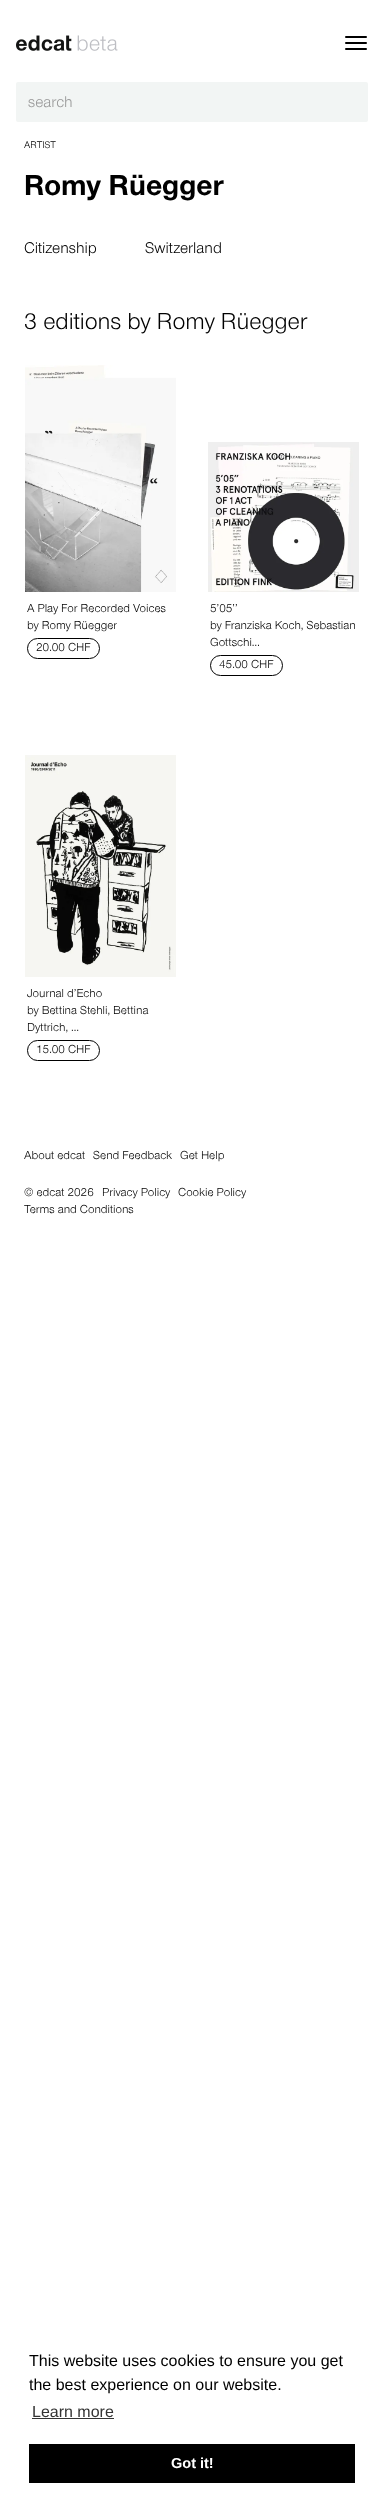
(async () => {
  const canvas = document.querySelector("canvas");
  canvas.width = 384;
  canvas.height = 2499;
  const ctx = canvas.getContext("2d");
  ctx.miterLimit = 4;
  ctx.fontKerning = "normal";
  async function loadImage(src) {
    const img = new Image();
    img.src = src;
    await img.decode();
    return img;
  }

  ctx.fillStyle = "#ffffff";
  ctx.fillRect(0, 0, 384, 2499);
  ctx.drawImage(await loadImage("img/1.png"), 16, 35, 102, 16);
  ctx.fillStyle = "#000000";
  ctx.beginPath();
  ctx.roundRect(345, 36, 22, 2, 1);
  ctx.fill();
  ctx.beginPath();
  ctx.roundRect(345, 42, 22, 2, 1);
  ctx.fill();
  ctx.beginPath();
  ctx.roundRect(345, 48, 22, 2, 1);
  ctx.fill();
  ctx.fillStyle = "#f2f5f4";
  ctx.beginPath();
  ctx.roundRect(16, 82, 352, 40, 2);
  ctx.fill();
  ctx.drawImage(await loadImage("img/2.png"), 25, 365, 151, 227);
  ctx.beginPath();
  ctx.roundRect(27.5, 638.5, 72, 20, 10);
  ctx.strokeStyle = "#000000";
  ctx.stroke();
  ctx.drawImage(await loadImage("img/3.png"), 208, 442, 151, 150);
  ctx.beginPath();
  ctx.roundRect(210.5, 655.5, 72, 20, 10);
  ctx.stroke();
  ctx.drawImage(await loadImage("img/4.png"), 25, 755, 151, 222);
  ctx.beginPath();
  ctx.roundRect(27.5, 1040.5, 72, 20, 10);
  ctx.stroke();
  ctx.fillStyle = "#333333";
  ctx.fillRect(32, 2418, 82, 1);
  ctx.fillStyle = "#000000";
  ctx.fillRect(29, 2444, 326, 39);
  ctx.font = "16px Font";
  ctx.fillStyle = "#999999";
  ctx.fillText("search", 28, 107);
  ctx.font = "10px Font";
  ctx.fillStyle = "#000000";
  ctx.fillText("ARTIST", 24, 148);
  ctx.font = "bold 30px Font";
  ctx.fillText("Romy Rüegger", 24, 195);
  ctx.font = "16px Font";
  ctx.fillText("Citizenship", 24, 253);
  ctx.fillText("Switzerland", 145, 253);
  ctx.font = "24px Font";
  ctx.fillText("3 editions by Romy Rüegger", 24, 329);
  ctx.font = "12px Font";
  for (const [text, x, y] of [
    ["A Play For Recorded Voices", 27, 612],
    ["by Romy Rüegger", 27, 629],
    ["20.00 CHF", 36, 651],
    ["5’05’’", 210, 612],
    ["by Franziska Koch, Sebastian", 210, 629],
    ["Gottschi…", 210, 646],
    ["45.00 CHF", 219, 668],
    ["Journal d’Echo", 27, 997],
    ["by Bettina Stehli, Bettina", 27, 1014],
    ["Dyttrich, …", 27, 1031],
    ["15.00 CHF", 36, 1053],
    ["About edcat", 24, 1159],
    ["Send Feedback", 93, 1159],
    ["Get Help", 180, 1159],
    ["© edcat 2026", 24, 1196],
    ["Privacy Policy", 102, 1196],
    ["Cookie Policy", 178, 1196],
    ["Terms and Conditions", 24, 1213],
  ]) {
    ctx.fillText(text, x, y);
  }
  ctx.font = "16px Liberation Sans";
  ctx.fillText("This website uses cookies to ensure you get", 29, 2366);
  ctx.fillText("the best experience on our website.", 29, 2390);
  ctx.fillStyle = "#333333";
  ctx.fillText("Learn more", 32, 2417);
  ctx.font = "bold 14.5px Liberation Sans";
  ctx.fillStyle = "#ffffff";
  ctx.fillText("Got it!", 171, 2468);
})();
